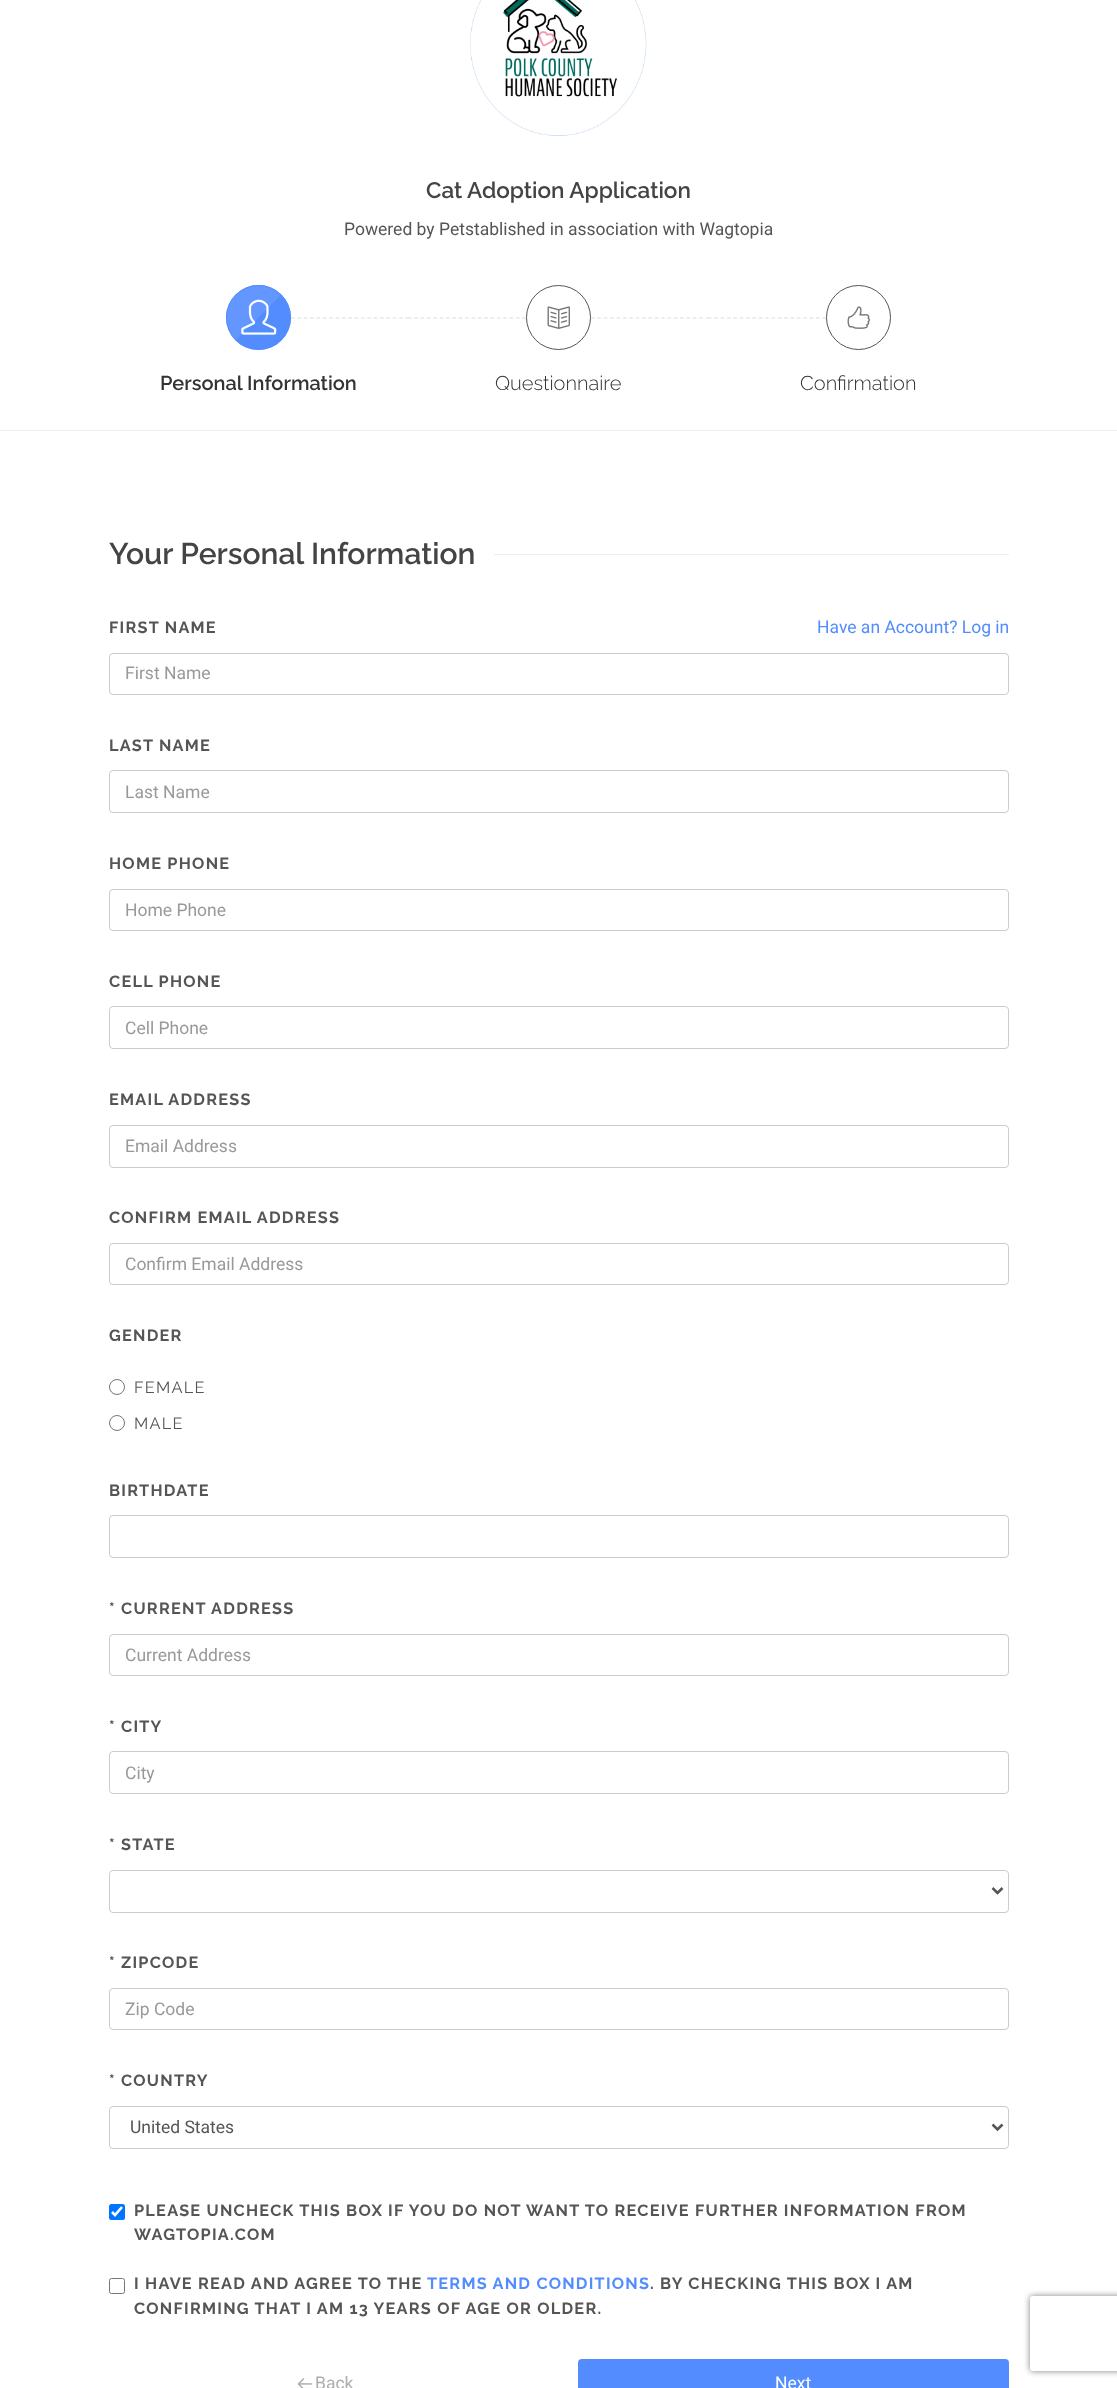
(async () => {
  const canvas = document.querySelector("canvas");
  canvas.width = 1117;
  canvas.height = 2388;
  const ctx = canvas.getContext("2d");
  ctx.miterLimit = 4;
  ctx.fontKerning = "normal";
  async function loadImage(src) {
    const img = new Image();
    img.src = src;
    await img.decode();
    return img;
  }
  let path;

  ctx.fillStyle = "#ffffff";
  ctx.fillRect(0, 0, 1117, 2388);
  ctx.fillStyle = "#eeeeee";
  ctx.fillRect(0, 430, 1117, 1);
  ctx.drawImage(await loadImage("img/1.png"), 470, 0, 177, 136);
  ctx.fillStyle = "#528cff";
  ctx.beginPath();
  ctx.arc(258.5, 317.5, 32.5, 0, Math.PI * 2);
  ctx.fill();
  ctx.drawImage(await loadImage("img/2.png"), 227, 286, 64, 64);
  ctx.beginPath();
  ctx.arc(258.5, 317.5, 32, 0, Math.PI * 2);
  ctx.strokeStyle = "#528cff";
  ctx.stroke();
  ctx.drawImage(await loadImage("img/3.png"), 241, 299, 36, 36);
  ctx.save();
  ctx.beginPath();
  ctx.rect(109, 280, 300, 119);
  ctx.clip();
  path = new Path2D("M291 318H441");
  ctx.strokeStyle = "#dddddd";
  ctx.lineWidth = 1.2;
  ctx.setLineDash([3.75, 2.61]);
  ctx.stroke(path);
  ctx.restore();
  ctx.save();
  ctx.beginPath();
  ctx.rect(409, 280, 300, 119);
  ctx.clip();
  path = new Path2D("M376 318H526");
  ctx.strokeStyle = "#dddddd";
  ctx.lineWidth = 1.2;
  ctx.setLineDash([3.75, 2.61]);
  ctx.stroke(path);
  ctx.restore();
  ctx.beginPath();
  ctx.arc(558.5, 317.5, 32, 0, Math.PI * 2);
  ctx.strokeStyle = "#555555";
  ctx.stroke();
  ctx.drawImage(await loadImage("img/4.png"), 547, 306, 23, 23);
  ctx.save();
  ctx.beginPath();
  ctx.rect(409, 280, 300, 119);
  ctx.clip();
  path = new Path2D("M591 318H741");
  ctx.strokeStyle = "#dddddd";
  ctx.lineWidth = 1.2;
  ctx.setLineDash([3.75, 2.61]);
  ctx.stroke(path);
  ctx.restore();
  ctx.save();
  ctx.beginPath();
  ctx.rect(709, 280, 300, 119);
  ctx.clip();
  path = new Path2D("M676 318H826");
  ctx.strokeStyle = "#dddddd";
  ctx.lineWidth = 1.2;
  ctx.setLineDash([3.75, 2.61]);
  ctx.stroke(path);
  ctx.restore();
  ctx.beginPath();
  ctx.arc(858.5, 317.5, 32, 0, Math.PI * 2);
  ctx.stroke();
  ctx.drawImage(await loadImage("img/5.png"), 847, 306, 23, 23);
  ctx.fillStyle = "#eeeeee";
  ctx.fillRect(494, 554, 515, 1);
  ctx.beginPath();
  ctx.roundRect(109.5, 653.5, 899, 41, 3.5);
  ctx.strokeStyle = "#cccccc";
  ctx.stroke();
  ctx.beginPath();
  ctx.roundRect(109.5, 770.5, 899, 42, 3.5);
  ctx.stroke();
  ctx.beginPath();
  ctx.roundRect(109.5, 889.5, 899, 41, 3.5);
  ctx.stroke();
  ctx.beginPath();
  ctx.roundRect(109.5, 1006.5, 899, 42, 3.5);
  ctx.stroke();
  ctx.beginPath();
  ctx.roundRect(109.5, 1125.5, 899, 42, 3.5);
  ctx.stroke();
  ctx.beginPath();
  ctx.roundRect(109.5, 1243.5, 899, 41, 3.5);
  ctx.stroke();
  ctx.beginPath();
  ctx.arc(117, 1387, 7.5, 0, Math.PI * 2);
  ctx.strokeStyle = "#767676";
  ctx.stroke();
  ctx.beginPath();
  ctx.arc(117, 1423, 7.5, 0, Math.PI * 2);
  ctx.stroke();
  ctx.beginPath();
  ctx.roundRect(109.5, 1515.5, 899, 42, 3.5);
  ctx.strokeStyle = "#cccccc";
  ctx.stroke();
  ctx.beginPath();
  ctx.roundRect(109.5, 1634.5, 899, 41, 3.5);
  ctx.stroke();
  ctx.beginPath();
  ctx.roundRect(109.5, 1751.5, 899, 42, 3.5);
  ctx.stroke();
  ctx.beginPath();
  ctx.roundRect(109.5, 1870.5, 899, 42, 3.5);
  ctx.stroke();
  path = new Path2D("M992.5 1888L997.5 1893L1002.5 1888");
  ctx.strokeStyle = "#555555";
  ctx.lineWidth = 2.5;
  ctx.stroke(path);
  ctx.beginPath();
  ctx.roundRect(109.5, 1988.5, 899, 41, 3.5);
  ctx.strokeStyle = "#cccccc";
  ctx.lineWidth = 1;
  ctx.stroke();
  ctx.beginPath();
  ctx.roundRect(109.5, 2106.5, 899, 42, 3.5);
  ctx.stroke();
  path = new Path2D("M992.5 2124.5L997.5 2129.5L1002.5 2124.5");
  ctx.strokeStyle = "#555555";
  ctx.lineWidth = 2.5;
  ctx.stroke(path);
  ctx.fillStyle = "#0075ff";
  ctx.beginPath();
  ctx.roundRect(109, 2204, 16, 16, 2.5);
  ctx.fill();
  path = new Path2D("M112 2212L115 2215L122 2207");
  ctx.strokeStyle = "#ffffff";
  ctx.lineWidth = 2.6;
  ctx.stroke(path);
  ctx.beginPath();
  ctx.roundRect(109.5, 2278.5, 15, 15, 2);
  ctx.strokeStyle = "#767676";
  ctx.lineWidth = 1;
  ctx.stroke();
  ctx.drawImage(await loadImage("img/6.png"), 297, 2378, 16, 10);
  ctx.fillStyle = "#528cff";
  ctx.beginPath();
  ctx.roundRect(578, 2359, 431, 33, 4);
  ctx.fill();
  ctx.save();
  path = new Path2D("M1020 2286H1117V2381H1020ZM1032.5 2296H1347.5C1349 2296 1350 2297 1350 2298.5V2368.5C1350 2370 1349 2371 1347.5 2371H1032.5C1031 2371 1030 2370 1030 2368.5V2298.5C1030 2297 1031 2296 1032.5 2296Z");
  ctx.clip(path, "evenodd");
  ctx.fillStyle = "#808080";
  ctx.filter = "blur(3px)";
  ctx.beginPath();
  ctx.roundRect(1030, 2296, 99, 75, 2.5);
  ctx.fill();
  ctx.filter = "none";
  ctx.restore();
  ctx.font = "600 22.5px Raleway";
  ctx.fillStyle = "#444444";
  ctx.fillText("Cat Adoption Application", 426, 198);
  ctx.font = "17.5px Roboto";
  ctx.fillStyle = "#555555";
  ctx.fillText("Powered by Petstablished in association with Wagtopia", 344, 235);
  ctx.font = "600 20px Raleway";
  ctx.fillStyle = "#333333";
  ctx.fillText("Personal Information", 160, 390);
  ctx.font = "300 20px Raleway";
  ctx.fillText("Questionnaire", 495, 390);
  ctx.fillText("Confirmation", 800, 390);
  ctx.font = "600 30px Raleway";
  ctx.fillStyle = "#444444";
  ctx.fillText("Your Personal Information", 109, 564);
  ctx.letterSpacing = "1.25px";
  ctx.font = "bold 16.25px Raleway";
  ctx.fillStyle = "#555555";
  ctx.fillText("FIRST NAME", 109, 633);
  ctx.letterSpacing = "0px";
  ctx.font = "17.5px Roboto";
  ctx.fillStyle = "#528cff";
  ctx.fillText("Have an Account? Log in", 817, 633);
  ctx.fillStyle = "#999999";
  ctx.fillText("First Name", 125, 679);
  ctx.letterSpacing = "1.25px";
  ctx.font = "bold 16.25px Raleway";
  ctx.fillStyle = "#555555";
  ctx.fillText("LAST NAME", 109, 751);
  ctx.letterSpacing = "0px";
  ctx.font = "17.5px Roboto";
  ctx.fillStyle = "#999999";
  ctx.fillText("Last Name", 125, 798);
  ctx.letterSpacing = "1.25px";
  ctx.font = "bold 16.25px Raleway";
  ctx.fillStyle = "#555555";
  ctx.fillText("HOME PHONE", 109, 869);
  ctx.letterSpacing = "0px";
  ctx.font = "17.5px Roboto";
  ctx.fillStyle = "#999999";
  ctx.fillText("Home Phone", 125, 916);
  ctx.letterSpacing = "1.25px";
  ctx.font = "bold 16.25px Raleway";
  ctx.fillStyle = "#555555";
  ctx.fillText("CELL PHONE", 109, 987);
  ctx.letterSpacing = "0px";
  ctx.font = "17.5px Roboto";
  ctx.fillStyle = "#999999";
  ctx.fillText("Cell Phone", 125, 1034);
  ctx.letterSpacing = "1.25px";
  ctx.font = "bold 16.25px Raleway";
  ctx.fillStyle = "#555555";
  ctx.fillText("EMAIL ADDRESS", 109, 1105);
  ctx.letterSpacing = "0px";
  ctx.font = "17.5px Roboto";
  ctx.fillStyle = "#999999";
  ctx.fillText("Email Address", 125, 1152);
  ctx.letterSpacing = "1.25px";
  ctx.font = "bold 16.25px Raleway";
  ctx.fillStyle = "#555555";
  ctx.fillText("CONFIRM EMAIL ADDRESS", 109, 1223);
  ctx.letterSpacing = "0px";
  ctx.font = "17.5px Roboto";
  ctx.fillStyle = "#999999";
  ctx.fillText("Confirm Email Address", 125, 1270);
  ctx.letterSpacing = "1.25px";
  ctx.font = "bold 16.25px Raleway";
  ctx.fillStyle = "#555555";
  ctx.fillText("GENDER", 109, 1341);
  ctx.font = "16.25px Raleway";
  ctx.fillText("FEMALE", 134, 1393);
  ctx.fillText("MALE", 134, 1429);
  ctx.font = "bold 16.25px Raleway";
  ctx.fillText("BIRTHDATE", 109, 1496);
  ctx.fillText("* CURRENT ADDRESS", 109, 1614);
  ctx.letterSpacing = "0px";
  ctx.font = "17.5px Roboto";
  ctx.fillStyle = "#999999";
  ctx.fillText("Current Address", 125, 1661);
  ctx.letterSpacing = "1.25px";
  ctx.font = "bold 16.25px Raleway";
  ctx.fillStyle = "#555555";
  ctx.fillText("* CITY", 109, 1732);
  ctx.letterSpacing = "0px";
  ctx.font = "17.5px Roboto";
  ctx.fillStyle = "#999999";
  ctx.fillText("City", 125, 1779);
  ctx.letterSpacing = "1.25px";
  ctx.font = "bold 16.25px Raleway";
  ctx.fillStyle = "#555555";
  ctx.fillText("* STATE", 109, 1850);
  ctx.fillText("* ZIPCODE", 109, 1968);
  ctx.letterSpacing = "0px";
  ctx.font = "17.5px Roboto";
  ctx.fillStyle = "#999999";
  ctx.fillText("Zip Code", 125, 2015);
  ctx.letterSpacing = "1.25px";
  ctx.font = "bold 16.25px Raleway";
  ctx.fillStyle = "#555555";
  ctx.fillText("* COUNTRY", 109, 2086);
  ctx.letterSpacing = "0px";
  ctx.font = "17.5px Roboto";
  ctx.fillText("United States", 130, 2133);
  ctx.letterSpacing = "1.25px";
  ctx.font = "bold 16.25px Raleway";
  for (const [text, x, y] of [
    ["PLEASE UNCHECK THIS BOX IF YOU DO NOT WANT TO RECEIVE FURTHER INFORMATION FROM", 134, 2216],
    ["WAGTOPIA.COM", 134, 2240],
    ["I HAVE READ AND AGREE TO THE", 134, 2289],
  ]) {
    ctx.fillText(text, x, y);
  }
  ctx.fillStyle = "#528cff";
  ctx.fillText("TERMS AND CONDITIONS", 427, 2289);
  ctx.fillStyle = "#555555";
  ctx.fillText(". BY CHECKING THIS BOX I AM", 650, 2289);
  ctx.fillText("CONFIRMING THAT I AM 13 YEARS OF AGE OR OLDER.", 134, 2314);
  ctx.letterSpacing = "0px";
  ctx.font = "17.5px Roboto";
  ctx.fillStyle = "#adadad";
  ctx.fillText("Back", 315, 2389);
  ctx.fillStyle = "#ffffff";
  ctx.fillText("Next", 775, 2389);
})();
